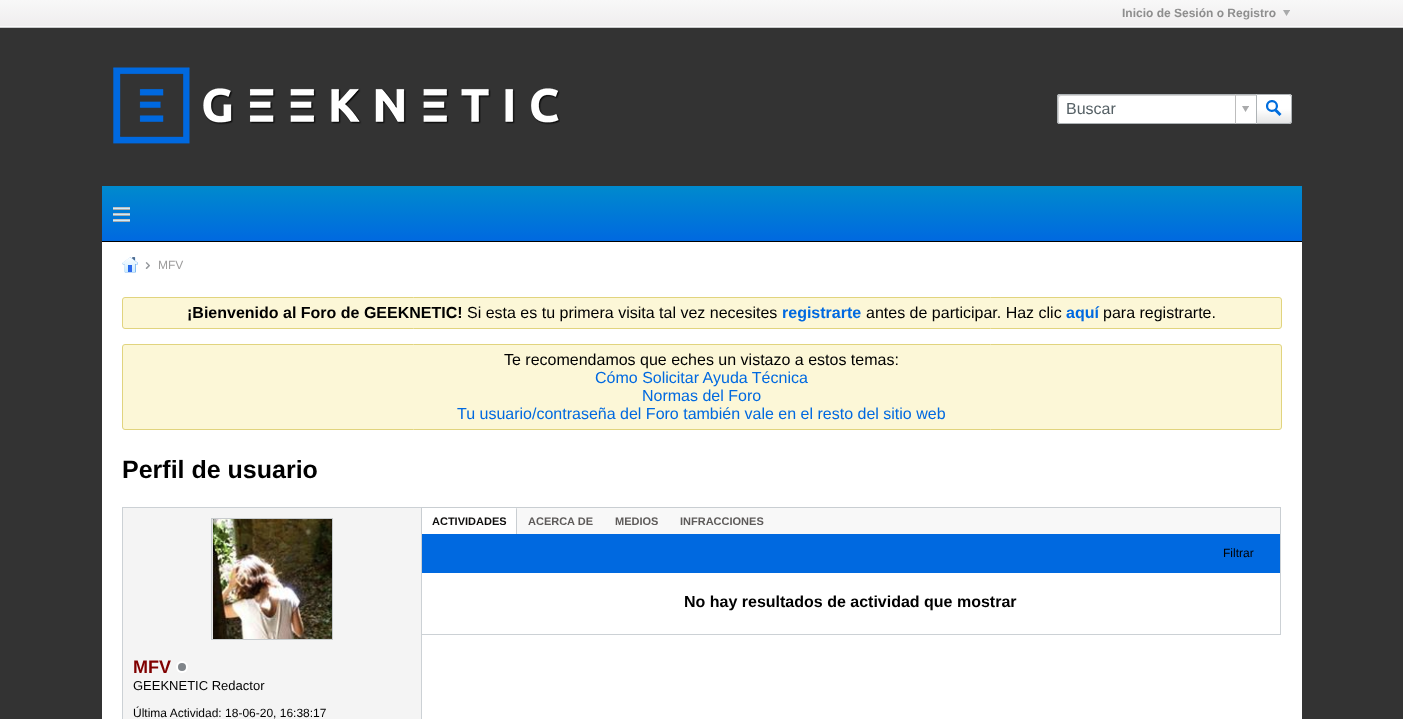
(async () => {
  const canvas = document.querySelector("canvas");
  canvas.width = 1403;
  canvas.height = 719;
  const ctx = canvas.getContext("2d");
  ctx.miterLimit = 4;
  ctx.fontKerning = "normal";
  async function loadImage(src) {
    const img = new Image();
    img.src = src;
    await img.decode();
    return img;
  }
  let gradient, path;

  ctx.fillStyle = "#333333";
  ctx.fillRect(0, 0, 1403, 719);
  gradient = ctx.createLinearGradient(702, 0, 702, 28);
  gradient.addColorStop(0, "#f8f8f8");
  gradient.addColorStop(1, "#efedee");
  ctx.fillStyle = gradient;
  ctx.fillRect(0, 0, 1403, 26);
  ctx.drawImage(await loadImage("img/1.png"), 1283, 10, 7, 6);
  ctx.fillStyle = "#fafafa";
  ctx.fillRect(0, 26, 1403, 1);
  ctx.fillStyle = "#c7c8c9";
  ctx.fillRect(0, 27, 1403, 1);
  ctx.drawImage(await loadImage("img/2.png"), 113, 67, 447, 77);
  ctx.fillStyle = "#ffffff";
  ctx.beginPath();
  ctx.roundRect(1057, 94, 199, 30, [3, 0, 0, 3]);
  ctx.fill();
  ctx.fillStyle = "#d5d5d5";
  path = new Path2D("M1061 96H1256V95H1059L1058 97V109C1058 111 1057 122 1059 123V102C1059 101 1058 96 1061 96Z");
  ctx.fill(path);
  ctx.fillStyle = "#aeb3b6";
  path = new Path2D("M1060 94H1256V124H1060C1058 124 1057 123 1057 121V97C1057 95 1058 94 1060 94ZM1060 95H1256V123H1060C1059 123 1058 122 1058 121V97C1058 96 1059 95 1060 95Z");
  ctx.fill(path, "evenodd");
  ctx.fillStyle = "#bdbdbd";
  ctx.fillRect(1235, 94, 1, 30);
  ctx.drawImage(await loadImage("img/3.png"), 1242, 106, 7, 6);
  ctx.fillStyle = "#ffffff";
  ctx.beginPath();
  ctx.roundRect(1256, 94, 36, 30, [0, 3, 3, 0]);
  ctx.fill();
  gradient = ctx.createLinearGradient(1274, 123, 1274, 95);
  gradient.addColorStop(0, "rgba(0, 0, 0, 0.1)");
  gradient.addColorStop(0.5, "rgba(0, 0, 0, 0)");
  gradient.addColorStop(0.5, "rgba(255, 255, 255, 0)");
  gradient.addColorStop(1, "rgba(255, 255, 255, 0.7)");
  ctx.fillStyle = gradient;
  ctx.fillRect(1257, 95, 35, 28);
  ctx.beginPath();
  ctx.roundRect(1256.5, 94.5, 35, 29, [0, 2.5, 2.5, 0]);
  ctx.strokeStyle = "#aeb3b6";
  ctx.stroke();
  ctx.drawImage(await loadImage("img/4.png"), 1266, 100, 16, 16);
  gradient = ctx.createLinearGradient(702, 186, 702, 241);
  gradient.addColorStop(0, "#008acd");
  gradient.addColorStop(1, "#0069e0");
  ctx.fillStyle = gradient;
  ctx.fillRect(102, 186, 1200, 55);
  ctx.fillStyle = "#000000";
  ctx.fillRect(102, 241, 1200, 1);
  ctx.drawImage(await loadImage("img/5.png"), 113, 207, 17, 15);
  ctx.fillStyle = "#ffffff";
  ctx.fillRect(102, 242, 1200, 477);
  ctx.drawImage(await loadImage("img/6.png"), 122, 257, 16, 16);
  ctx.drawImage(await loadImage("img/7.png"), 145, 262, 5, 7);
  ctx.fillStyle = "#fcf7d7";
  ctx.beginPath();
  ctx.roundRect(122.5, 297.5, 1159, 31, 2.5);
  ctx.fill();
  ctx.strokeStyle = "#e1d47e";
  ctx.stroke();
  ctx.beginPath();
  ctx.roundRect(122.5, 344.5, 1159, 85, 2.5);
  ctx.fill();
  ctx.stroke();
  ctx.strokeStyle = "#ccd1d5";
  ctx.strokeRect(122.5, 507.5, 299, 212);
  ctx.strokeRect(421.5, 507.5, 859, 127);
  for (const [x, y, w, h, color] of [
    [516, 508, 764, 26, "#f8f8f8"],
    [421, 507, 860, 1, "#c9ced2"],
    [1280, 507, 1, 27, "#c9ced2"],
    [421, 507, 1, 3, "#c9ced2"],
  ]) {
    ctx.fillStyle = color;
    ctx.fillRect(x, y, w, h);
  }
  path = new Path2D("M424 507H514C516 507 517 508 517 510V534H421V510C421 508 422 507 424 507ZM424 508H514C515 508 516 509 516 510V534H422V510C422 509 423 508 424 508Z");
  ctx.fill(path, "evenodd");
  for (const [x, y, w, h, color] of [
    [422, 508, 94, 2, "#ffffff"],
    [422, 534, 858, 39, "#0069e0"],
    [123, 508, 298, 211, "#f4f4f4"],
  ]) {
    ctx.fillStyle = color;
    ctx.fillRect(x, y, w, h);
  }
  ctx.strokeStyle = "#c8ccce";
  ctx.strokeRect(211.5, 518.5, 121, 121);
  ctx.drawImage(await loadImage("img/8.png"), 212, 519, 120, 120);
  ctx.drawImage(await loadImage("img/9.png"), 176, 661, 12, 12);
  ctx.font = "bold 12px Liberation Sans";
  ctx.fillStyle = "#8e8e8e";
  ctx.fillText("Inicio de Sesión o Registro", 1122, 17);
  ctx.font = "16px Liberation Sans";
  ctx.fillStyle = "#556065";
  ctx.fillText("Buscar", 1066, 114);
  ctx.font = "12px Liberation Sans";
  ctx.fillStyle = "#9e9d9d";
  ctx.fillText("MFV", 158, 269);
  ctx.font = "bold 16px Liberation Sans";
  ctx.fillStyle = "#000000";
  ctx.fillText("¡Bienvenido al Foro de GEEKNETIC!", 187, 318);
  ctx.font = "16px Liberation Sans";
  ctx.fillText("Si esta es tu primera visita tal vez necesites", 467, 318);
  ctx.font = "bold 16px Liberation Sans";
  ctx.fillStyle = "#0069e0";
  ctx.fillText("registrarte", 782, 318);
  ctx.font = "16px Liberation Sans";
  ctx.fillStyle = "#000000";
  ctx.fillText("antes de participar. Haz clic", 866, 318);
  ctx.font = "bold 16px Liberation Sans";
  ctx.fillStyle = "#0069e0";
  ctx.fillText("aquí", 1066, 318);
  ctx.font = "16px Liberation Sans";
  ctx.fillStyle = "#000000";
  ctx.fillText("para registrarte.", 1103, 318);
  ctx.fillText("Te recomendamos que eches un vistazo a estos temas:", 504, 365);
  ctx.fillStyle = "#0069e0";
  for (const [text, x, y] of [
    ["Cómo Solicitar Ayuda Técnica", 595, 383],
    ["Normas del Foro", 642, 401],
    ["Tu usuario/contraseña del Foro también vale en el resto del sitio web", 457, 419],
  ]) {
    ctx.fillText(text, x, y);
  }
  ctx.font = "bold 25px Liberation Sans";
  ctx.fillStyle = "#000000";
  ctx.fillText("Perfil de usuario", 122, 478);
  ctx.font = "bold 11px Liberation Sans";
  ctx.fillStyle = "#0f0e0e";
  ctx.fillText("ACTIVIDADES", 432, 525);
  ctx.fillStyle = "#5e5b5a";
  for (const [text, x, y] of [
    ["ACERCA DE", 528, 525],
    ["MEDIOS", 615, 525],
    ["INFRACCIONES", 680, 525],
  ]) {
    ctx.fillText(text, x, y);
  }
  ctx.font = "12px Liberation Sans";
  ctx.fillStyle = "#000000";
  ctx.fillText("Filtrar", 1223, 557);
  ctx.font = "bold 16px Liberation Sans";
  ctx.fillText("No hay resultados de actividad que mostrar", 684, 607);
  ctx.font = "bold 18px Liberation Sans";
  ctx.fillStyle = "#800000";
  ctx.fillText("MFV", 133, 673);
  ctx.font = "13px Liberation Sans";
  ctx.fillStyle = "#000000";
  ctx.fillText("GEEKNETIC Redactor", 133, 690);
  ctx.font = "12px Liberation Sans";
  ctx.fillText("Última Actividad: 18-06-20, 16:38:17", 133, 717);
})();
